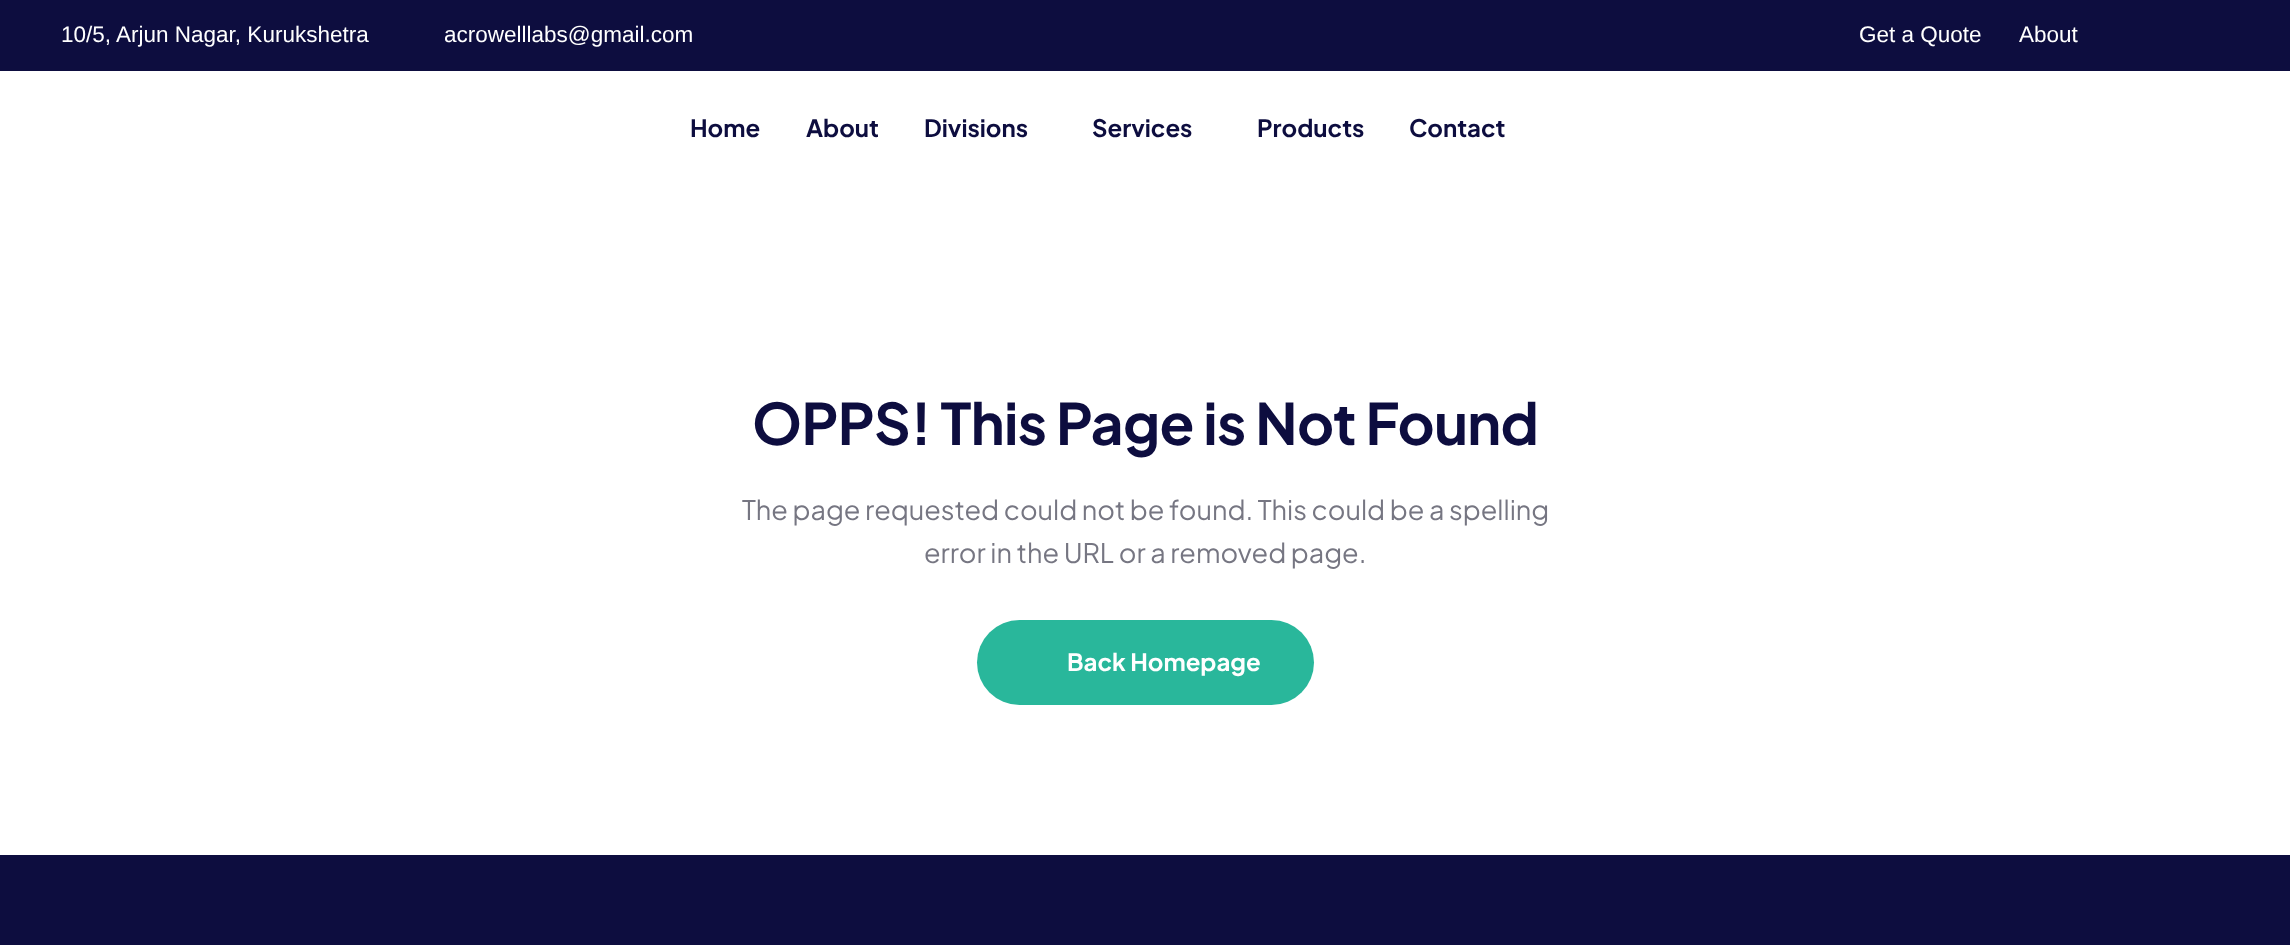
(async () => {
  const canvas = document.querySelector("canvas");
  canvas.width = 2290;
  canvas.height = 945;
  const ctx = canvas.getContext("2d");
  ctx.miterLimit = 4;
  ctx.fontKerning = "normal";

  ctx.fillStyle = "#ffffff";
  ctx.fillRect(0, 0, 2290, 945);
  ctx.fillStyle = "#0d0d3f";
  ctx.fillRect(0, 0, 2290, 71);
  ctx.fillStyle = "#29b79b";
  ctx.beginPath();
  ctx.roundRect(977, 620, 337, 85, 42.5);
  ctx.fill();
  ctx.fillStyle = "#0d0d3f";
  ctx.fillRect(0, 855, 2290, 90);
  ctx.font = "22.5px Liberation Sans";
  ctx.fillStyle = "#ffffff";
  for (const [text, x, y] of [
    ["10/5, Arjun Nagar, Kurukshetra", 61, 42],
    ["acrowelllabs@gmail.com", 444, 42],
    ["Get a Quote", 1859, 42],
    ["About", 2019, 42],
  ]) {
    ctx.fillText(text, x, y);
  }
  ctx.font = "bold 24px Plus Jakarta Sans";
  ctx.fillStyle = "#0d0d3f";
  for (const [text, x, y] of [
    ["Home", 690, 137],
    ["About", 806, 137],
    ["Divisions", 924, 137],
    ["Services", 1092, 137],
    ["Products", 1257, 137],
    ["Contact", 1409, 137],
  ]) {
    ctx.fillText(text, x, y);
  }
  ctx.letterSpacing = "-0.6px";
  ctx.font = "bold 57px Plus Jakarta Sans";
  ctx.fillText("OPPS! This Page is Not Found", 752, 445);
  ctx.letterSpacing = "0px";
  ctx.font = "27px Plus Jakarta Sans";
  ctx.fillStyle = "#767682";
  ctx.fillText("The page requested could not be found. This could be a spelling", 742, 520);
  ctx.fillText("error in the URL or a removed page.", 924, 563);
  ctx.font = "bold 24px Plus Jakarta Sans";
  ctx.fillStyle = "#ffffff";
  ctx.fillText("Back Homepage", 1067, 671);
})();
